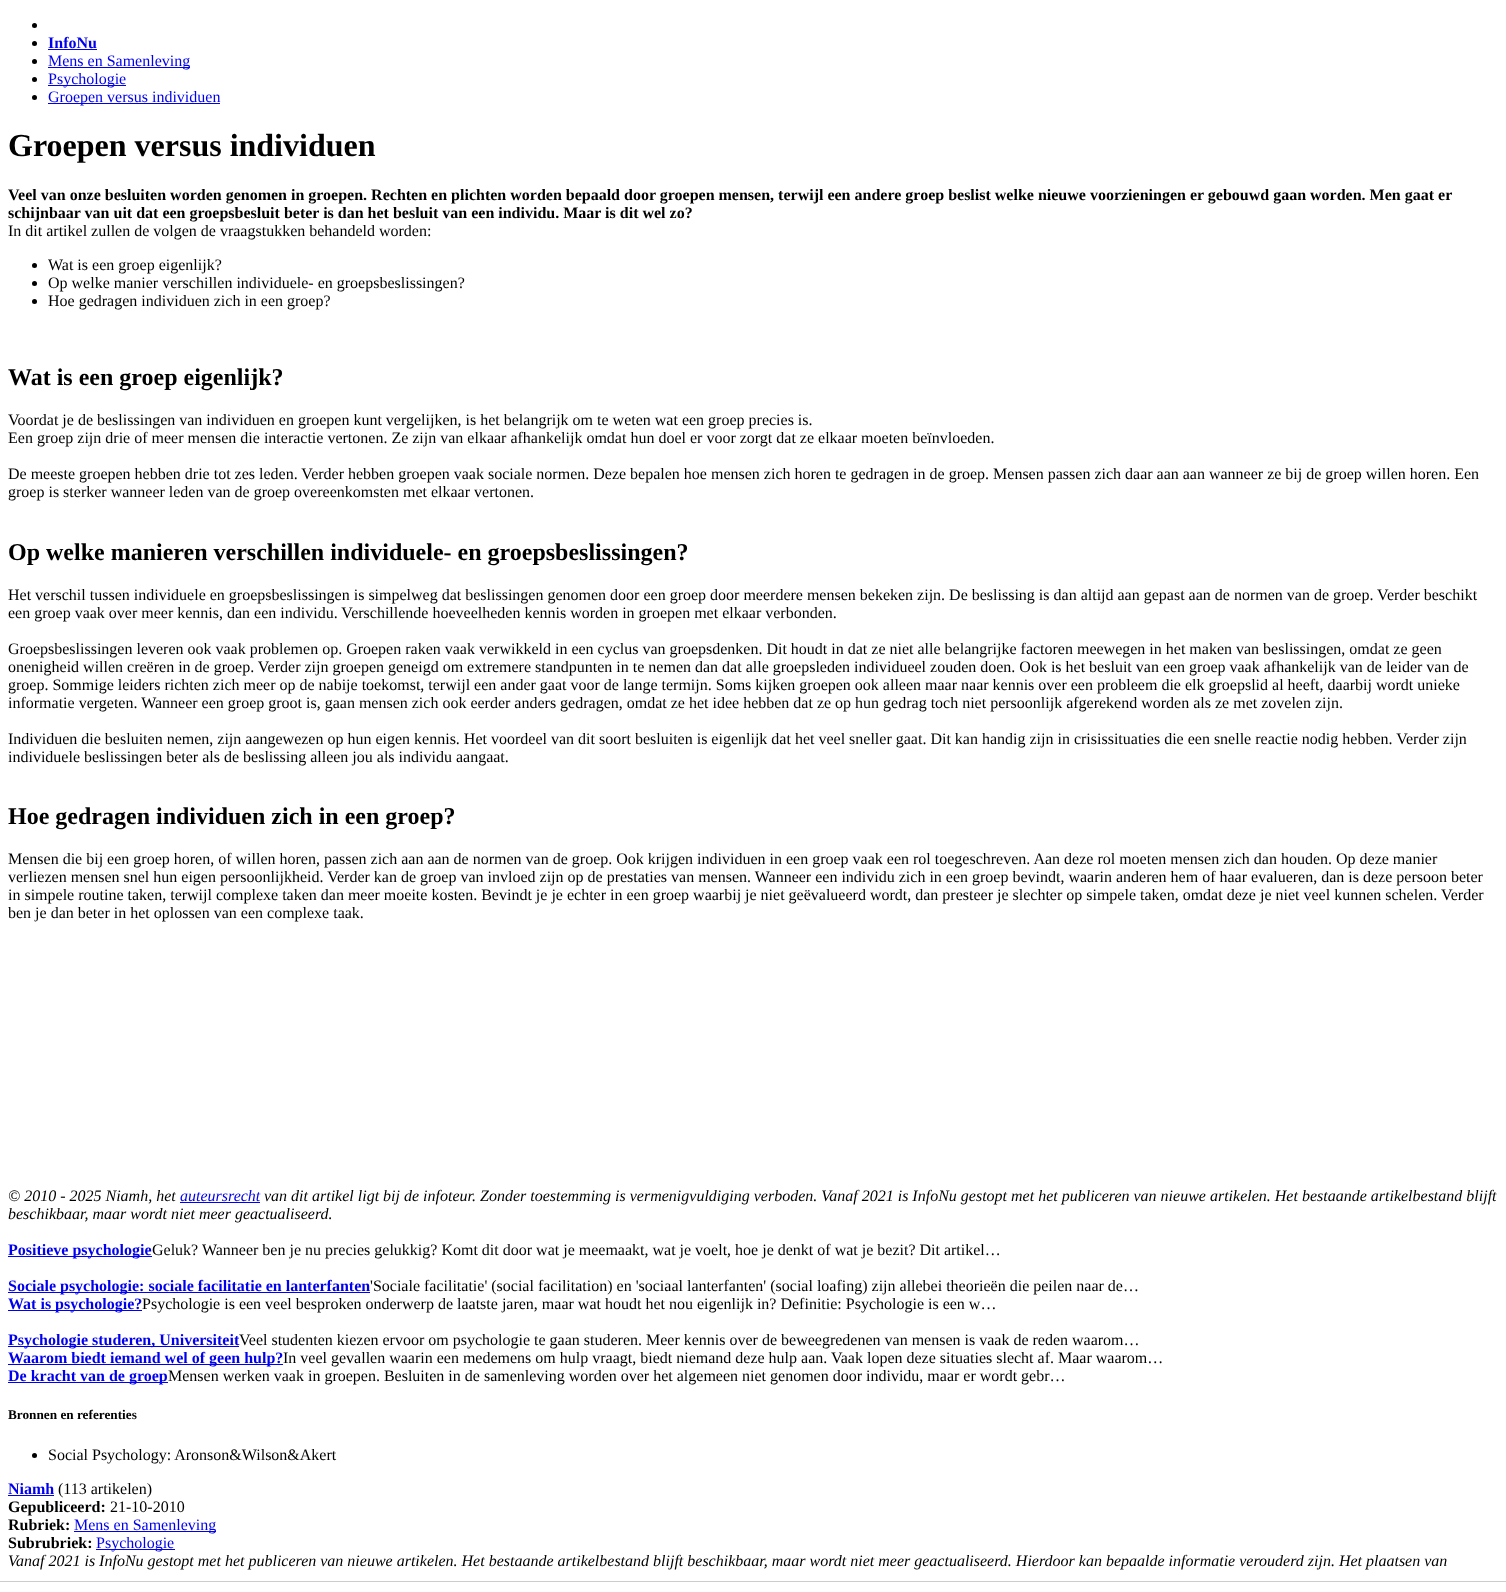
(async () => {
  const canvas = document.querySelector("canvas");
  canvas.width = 1506;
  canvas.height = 1592;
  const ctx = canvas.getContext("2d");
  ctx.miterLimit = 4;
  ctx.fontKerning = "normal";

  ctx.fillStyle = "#ffffff";
  ctx.fillRect(0, 0, 1506, 1592);
  ctx.fillStyle = "#000000";
  ctx.beginPath();
  ctx.arc(34.5, 25.5, 2.5, 0, Math.PI * 2);
  ctx.fill();
  ctx.beginPath();
  ctx.arc(34.5, 43.5, 2.5, 0, Math.PI * 2);
  ctx.fill();
  ctx.fillStyle = "#0000ee";
  ctx.fillRect(48, 49, 49, 1);
  ctx.fillStyle = "#000000";
  ctx.beginPath();
  ctx.arc(34.5, 61.5, 2.5, 0, Math.PI * 2);
  ctx.fill();
  ctx.fillStyle = "#0000ee";
  ctx.fillRect(48, 67, 142, 1);
  ctx.fillStyle = "#000000";
  ctx.beginPath();
  ctx.arc(34.5, 79.5, 2.5, 0, Math.PI * 2);
  ctx.fill();
  ctx.fillStyle = "#0000ee";
  ctx.fillRect(48, 85, 78, 1);
  ctx.fillStyle = "#000000";
  ctx.beginPath();
  ctx.arc(34.5, 97.5, 2.5, 0, Math.PI * 2);
  ctx.fill();
  ctx.fillStyle = "#0000ee";
  ctx.fillRect(48, 103, 172, 1);
  ctx.fillStyle = "#000000";
  ctx.beginPath();
  ctx.arc(34.5, 265.5, 2.5, 0, Math.PI * 2);
  ctx.fill();
  ctx.beginPath();
  ctx.arc(34.5, 283.5, 2.5, 0, Math.PI * 2);
  ctx.fill();
  ctx.beginPath();
  ctx.arc(34.5, 301.5, 2.5, 0, Math.PI * 2);
  ctx.fill();
  for (const [x, y, w, h, color] of [
    [180, 1202, 80, 1, "#0000ee"],
    [8, 1256, 144, 1, "#0000ee"],
    [8, 1292, 362, 1, "#0000ee"],
    [8, 1310, 134, 1, "#0000ee"],
    [8, 1346, 231, 1, "#0000ee"],
    [8, 1364, 275, 1, "#0000ee"],
    [8, 1382, 160, 1, "#0000ee"],
  ]) {
    ctx.fillStyle = color;
    ctx.fillRect(x, y, w, h);
  }
  ctx.fillStyle = "#000000";
  ctx.beginPath();
  ctx.arc(34.5, 1455.5, 2.5, 0, Math.PI * 2);
  ctx.fill();
  for (const [x, y, w, h, color] of [
    [8, 1495, 46, 1, "#0000ee"],
    [74, 1531, 142, 1, "#0000ee"],
    [96, 1549, 79, 1, "#0000ee"],
    [0, 1581, 1506, 1, "#cccccc"],
  ]) {
    ctx.fillStyle = color;
    ctx.fillRect(x, y, w, h);
  }
  ctx.font = "bold 16px Liberation Serif";
  ctx.fillStyle = "#0000ee";
  ctx.fillText("InfoNu", 48, 48);
  ctx.font = "16px Liberation Serif";
  for (const [text, x, y] of [
    ["Mens en Samenleving", 48, 66],
    ["Psychologie", 48, 84],
    ["Groepen versus individuen", 48, 102],
  ]) {
    ctx.fillText(text, x, y);
  }
  ctx.font = "bold 32px Liberation Serif";
  ctx.fillStyle = "#000000";
  ctx.fillText("Groepen versus individuen", 8, 156);
  ctx.font = "bold 16px Liberation Serif";
  ctx.fillText("Veel van onze besluiten worden genomen in groepen. Rechten en plichten worden bepaald door groepen mensen, terwijl een andere groep beslist welke nieuwe voorzieningen er gebouwd gaan worden. Men gaat er", 8, 200);
  ctx.fillText("schijnbaar van uit dat een groepsbesluit beter is dan het besluit van een individu. Maar is dit wel zo?", 8, 218);
  ctx.font = "16px Liberation Serif";
  for (const [text, x, y] of [
    ["In dit artikel zullen de volgen de vraagstukken behandeld worden:", 8, 236],
    ["Wat is een groep eigenlijk?", 48, 270],
    ["Op welke manier verschillen individuele- en groepsbeslissingen?", 48, 288],
    ["Hoe gedragen individuen zich in een groep?", 48, 306],
  ]) {
    ctx.fillText(text, x, y);
  }
  ctx.font = "bold 24px Liberation Serif";
  ctx.fillText("Wat is een groep eigenlijk?", 8, 385);
  ctx.font = "16px Liberation Serif";
  for (const [text, x, y] of [
    ["Voordat je de beslissingen van individuen en groepen kunt vergelijken, is het belangrijk om te weten wat een groep precies is.", 8, 425],
    ["Een groep zijn drie of meer mensen die interactie vertonen. Ze zijn van elkaar afhankelijk omdat hun doel er voor zorgt dat ze elkaar moeten beïnvloeden.", 8, 443],
    ["De meeste groepen hebben drie tot zes leden. Verder hebben groepen vaak sociale normen. Deze bepalen hoe mensen zich horen te gedragen in de groep. Mensen passen zich daar aan aan wanneer ze bij de groep willen horen. Een", 8, 479],
    ["groep is sterker wanneer leden van de groep overeenkomsten met elkaar vertonen.", 8, 497],
  ]) {
    ctx.fillText(text, x, y);
  }
  ctx.font = "bold 24px Liberation Serif";
  ctx.fillText("Op welke manieren verschillen individuele- en groepsbeslissingen?", 8, 560);
  ctx.font = "16px Liberation Serif";
  for (const [text, x, y] of [
    ["Het verschil tussen individuele en groepsbeslissingen is simpelweg dat beslissingen genomen door een groep door meerdere mensen bekeken zijn. De beslissing is dan altijd aan gepast aan de normen van de groep. Verder beschikt", 8, 600],
    ["een groep vaak over meer kennis, dan een individu. Verschillende hoeveelheden kennis worden in groepen met elkaar verbonden.", 8, 618],
    ["Groepsbeslissingen leveren ook vaak problemen op. Groepen raken vaak verwikkeld in een cyclus van groepsdenken. Dit houdt in dat ze niet alle belangrijke factoren meewegen in het maken van beslissingen, omdat ze geen", 8, 654],
    ["onenigheid willen creëren in de groep. Verder zijn groepen geneigd om extremere standpunten in te nemen dan dat alle groepsleden individueel zouden doen. Ook is het besluit van een groep vaak afhankelijk van de leider van de", 8, 672],
    ["groep. Sommige leiders richten zich meer op de nabije toekomst, terwijl een ander gaat voor de lange termijn. Soms kijken groepen ook alleen maar naar kennis over een probleem die elk groepslid al heeft, daarbij wordt unieke", 8, 690],
    ["informatie vergeten. Wanneer een groep groot is, gaan mensen zich ook eerder anders gedragen, omdat ze het idee hebben dat ze op hun gedrag toch niet persoonlijk afgerekend worden als ze met zovelen zijn.", 8, 708],
    ["Individuen die besluiten nemen, zijn aangewezen op hun eigen kennis. Het voordeel van dit soort besluiten is eigenlijk dat het veel sneller gaat. Dit kan handig zijn in crisissituaties die een snelle reactie nodig hebben. Verder zijn", 8, 744],
    ["individuele beslissingen beter als de beslissing alleen jou als individu aangaat.", 8, 762],
  ]) {
    ctx.fillText(text, x, y);
  }
  ctx.font = "bold 24px Liberation Serif";
  ctx.fillText("Hoe gedragen individuen zich in een groep?", 8, 824);
  ctx.font = "16px Liberation Serif";
  for (const [text, x, y] of [
    ["Mensen die bij een groep horen, of willen horen, passen zich aan aan de normen van de groep. Ook krijgen individuen in een groep vaak een rol toegeschreven. Aan deze rol moeten mensen zich dan houden. Op deze manier", 8, 864],
    ["verliezen mensen snel hun eigen persoonlijkheid. Verder kan de groep van invloed zijn op de prestaties van mensen. Wanneer een individu zich in een groep bevindt, waarin anderen hem of haar evalueren, dan is deze persoon beter", 8, 882],
    ["in simpele routine taken, terwijl complexe taken dan meer moeite kosten. Bevindt je je echter in een groep waarbij je niet geëvalueerd wordt, dan presteer je slechter op simpele taken, omdat deze je niet veel kunnen schelen. Verder", 8, 900],
    ["ben je dan beter in het oplossen van een complexe taak.", 8, 918],
  ]) {
    ctx.fillText(text, x, y);
  }
  ctx.font = "italic 16px Liberation Serif";
  ctx.fillText("© 2010 - 2025 Niamh, het", 8, 1201);
  ctx.fillStyle = "#0000ee";
  ctx.fillText("auteursrecht", 180, 1201);
  ctx.fillStyle = "#000000";
  ctx.fillText("van dit artikel ligt bij de infoteur. Zonder toestemming is vermenigvuldiging verboden. Vanaf 2021 is InfoNu gestopt met het publiceren van nieuwe artikelen. Het bestaande artikelbestand blijft", 264, 1201);
  ctx.fillText("beschikbaar, maar wordt niet meer geactualiseerd.", 8, 1219);
  ctx.font = "bold 16px Liberation Serif";
  ctx.fillStyle = "#0000ee";
  ctx.fillText("Positieve psychologie", 8, 1255);
  ctx.font = "16px Liberation Serif";
  ctx.fillStyle = "#000000";
  ctx.fillText("Geluk? Wanneer ben je nu precies gelukkig? Komt dit door wat je meemaakt, wat je voelt, hoe je denkt of wat je bezit? Dit artikel…", 152, 1255);
  ctx.font = "bold 16px Liberation Serif";
  ctx.fillStyle = "#0000ee";
  ctx.fillText("Sociale psychologie: sociale facilitatie en lanterfanten", 8, 1291);
  ctx.font = "16px Liberation Serif";
  ctx.fillStyle = "#000000";
  ctx.fillText("'Sociale facilitatie' (social facilitation) en 'sociaal lanterfanten' (social loafing) zijn allebei theorieën die peilen naar de…", 370, 1291);
  ctx.font = "bold 16px Liberation Serif";
  ctx.fillStyle = "#0000ee";
  ctx.fillText("Wat is psychologie?", 8, 1309);
  ctx.font = "16px Liberation Serif";
  ctx.fillStyle = "#000000";
  ctx.fillText("Psychologie is een veel besproken onderwerp de laatste jaren, maar wat houdt het nou eigenlijk in? Definitie: Psychologie is een w…", 142, 1309);
  ctx.font = "bold 16px Liberation Serif";
  ctx.fillStyle = "#0000ee";
  ctx.fillText("Psychologie studeren, Universiteit", 8, 1345);
  ctx.font = "16px Liberation Serif";
  ctx.fillStyle = "#000000";
  ctx.fillText("Veel studenten kiezen ervoor om psychologie te gaan studeren. Meer kennis over de beweegredenen van mensen is vaak de reden waarom…", 239, 1345);
  ctx.font = "bold 16px Liberation Serif";
  ctx.fillStyle = "#0000ee";
  ctx.fillText("Waarom biedt iemand wel of geen hulp?", 8, 1363);
  ctx.font = "16px Liberation Serif";
  ctx.fillStyle = "#000000";
  ctx.fillText("In veel gevallen waarin een medemens om hulp vraagt, biedt niemand deze hulp aan. Vaak lopen deze situaties slecht af. Maar waarom…", 283, 1363);
  ctx.font = "bold 16px Liberation Serif";
  ctx.fillStyle = "#0000ee";
  ctx.fillText("De kracht van de groep", 8, 1381);
  ctx.font = "16px Liberation Serif";
  ctx.fillStyle = "#000000";
  ctx.fillText("Mensen werken vaak in groepen. Besluiten in de samenleving worden over het algemeen niet genomen door individu, maar er wordt gebr…", 168, 1381);
  ctx.font = "bold 13.25px Liberation Serif";
  ctx.fillText("Bronnen en referenties", 8, 1419);
  ctx.font = "16px Liberation Serif";
  ctx.fillText("Social Psychology: Aronson&Wilson&Akert", 48, 1460);
  ctx.font = "bold 16px Liberation Serif";
  ctx.fillStyle = "#0000ee";
  ctx.fillText("Niamh", 8, 1494);
  ctx.font = "16px Liberation Serif";
  ctx.fillStyle = "#000000";
  ctx.fillText("(113 artikelen)", 58, 1494);
  ctx.font = "bold 16px Liberation Serif";
  ctx.fillText("Gepubliceerd:", 8, 1512);
  ctx.font = "16px Liberation Serif";
  ctx.fillText("21-10-2010", 110, 1512);
  ctx.font = "bold 16px Liberation Serif";
  ctx.fillText("Rubriek:", 8, 1530);
  ctx.font = "16px Liberation Serif";
  ctx.fillStyle = "#0000ee";
  ctx.fillText("Mens en Samenleving", 74, 1530);
  ctx.font = "bold 16px Liberation Serif";
  ctx.fillStyle = "#000000";
  ctx.fillText("Subrubriek:", 8, 1548);
  ctx.font = "16px Liberation Serif";
  ctx.fillStyle = "#0000ee";
  ctx.fillText("Psychologie", 96, 1548);
  ctx.font = "italic 16px Liberation Serif";
  ctx.fillStyle = "#000000";
  ctx.fillText("Vanaf 2021 is InfoNu gestopt met het publiceren van nieuwe artikelen. Het bestaande artikelbestand blijft beschikbaar, maar wordt niet meer geactualiseerd. Hierdoor kan bepaalde informatie verouderd zijn. Het plaatsen van", 8, 1566);
})();
